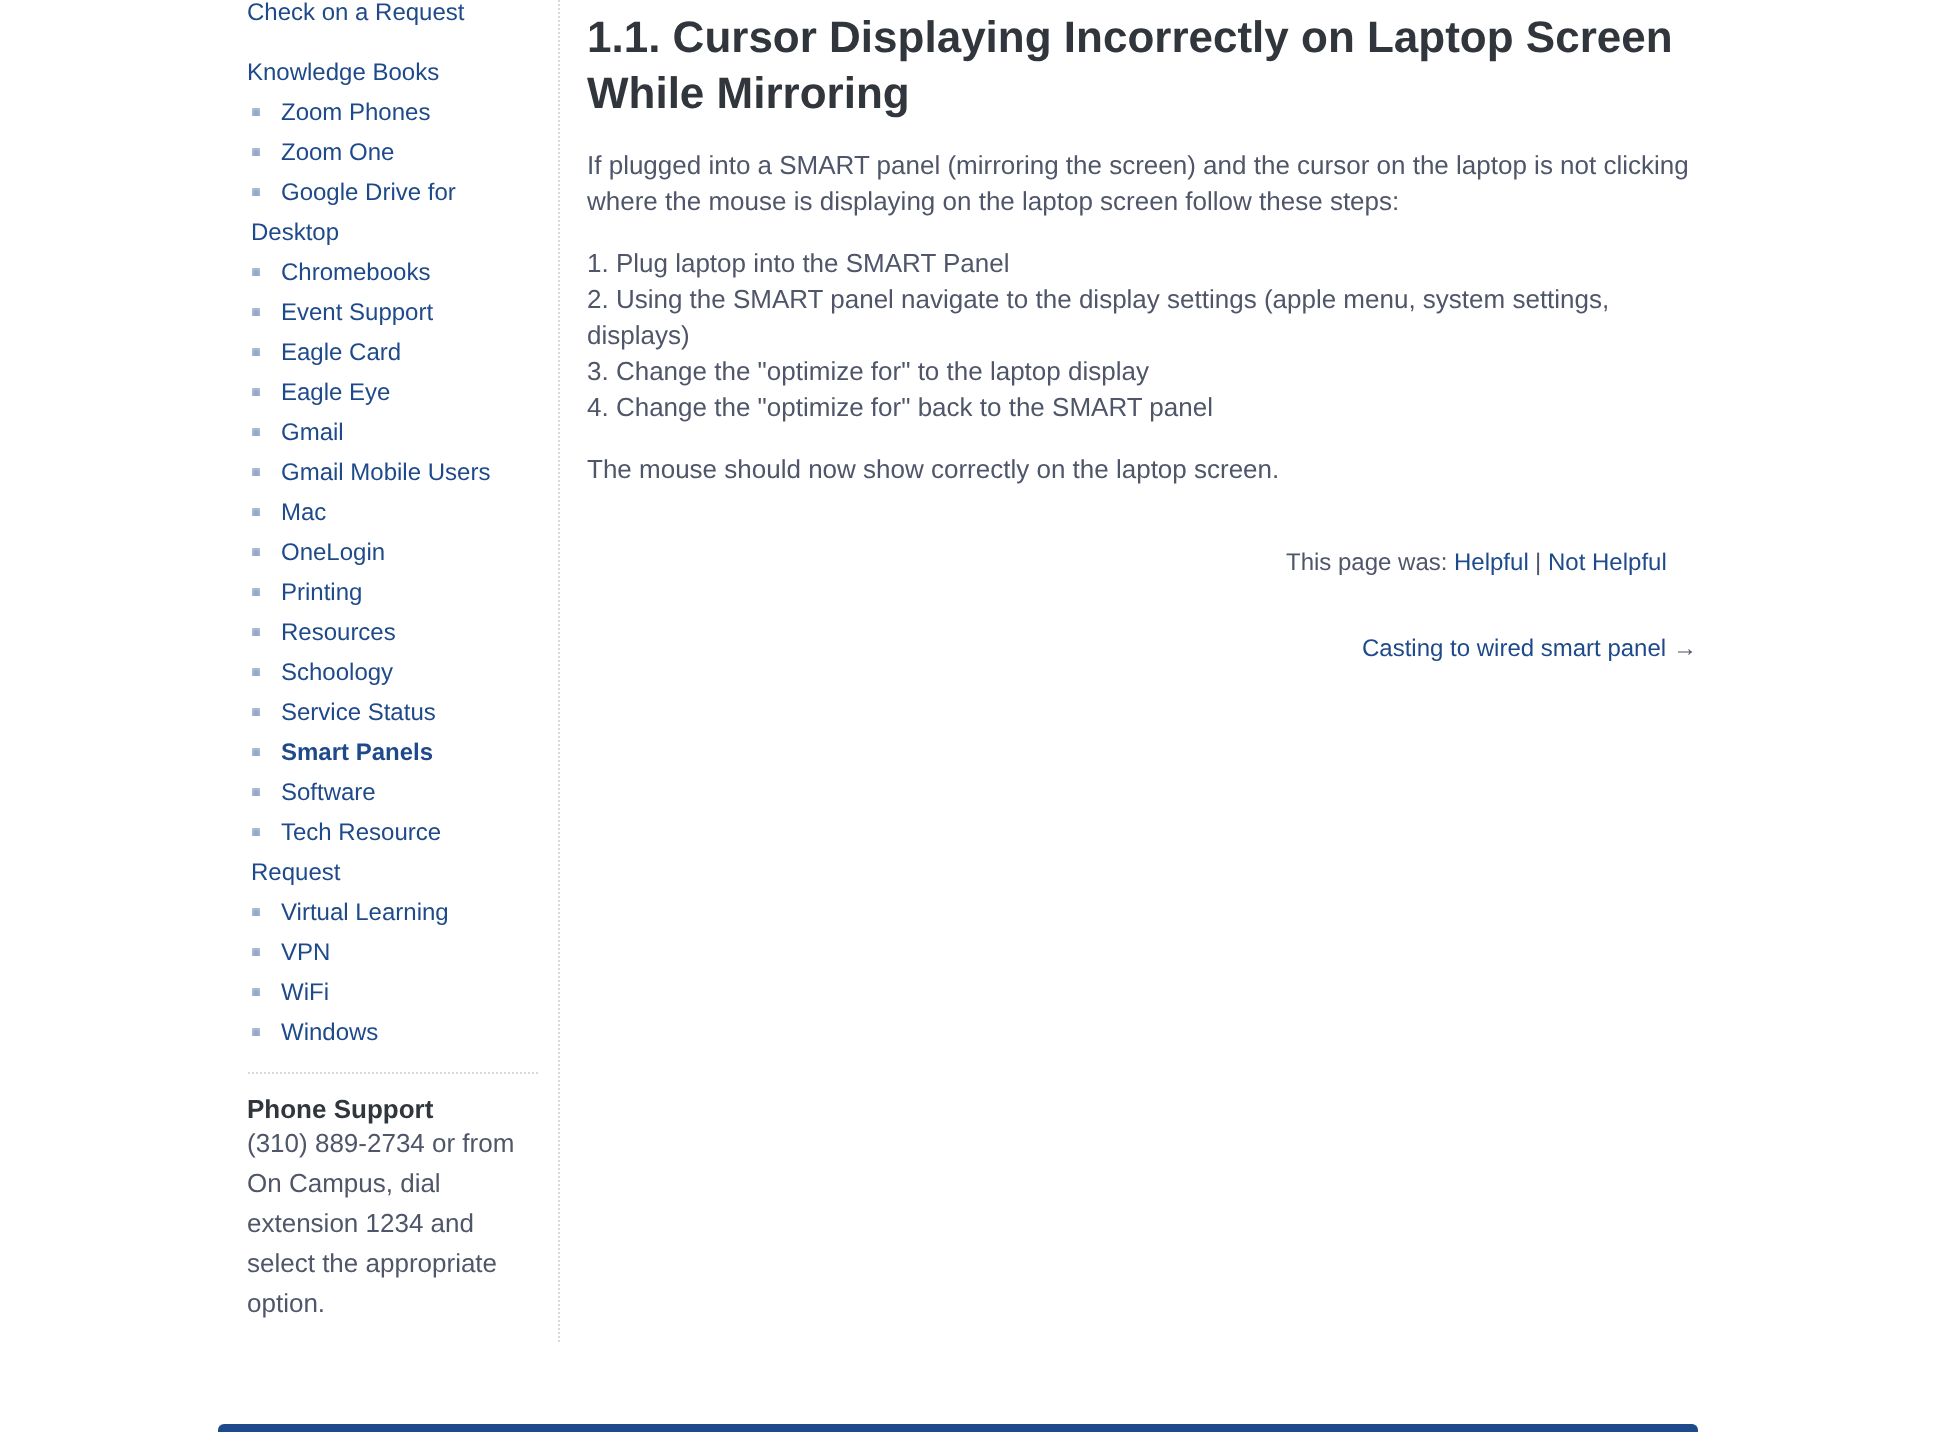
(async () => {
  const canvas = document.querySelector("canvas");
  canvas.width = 1954;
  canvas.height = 1432;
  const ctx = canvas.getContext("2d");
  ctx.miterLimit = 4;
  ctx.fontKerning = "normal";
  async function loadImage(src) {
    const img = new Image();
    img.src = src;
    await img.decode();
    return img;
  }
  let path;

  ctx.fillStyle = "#ffffff";
  ctx.fillRect(0, 0, 1954, 1432);
  path = new Path2D("M559-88V1344");
  ctx.strokeStyle = "#d7dbde";
  ctx.lineWidth = 2;
  ctx.setLineDash([2, 2]);
  ctx.stroke(path);
  ctx.drawImage(await loadImage("img/1.png"), 252, 108, 8, 8);
  ctx.drawImage(await loadImage("img/1.png"), 252, 148, 8, 8);
  ctx.drawImage(await loadImage("img/1.png"), 252, 188, 8, 8);
  ctx.drawImage(await loadImage("img/1.png"), 252, 268, 8, 8);
  ctx.drawImage(await loadImage("img/1.png"), 252, 308, 8, 8);
  ctx.drawImage(await loadImage("img/1.png"), 252, 348, 8, 8);
  ctx.drawImage(await loadImage("img/1.png"), 252, 388, 8, 8);
  ctx.drawImage(await loadImage("img/1.png"), 252, 428, 8, 8);
  ctx.drawImage(await loadImage("img/1.png"), 252, 468, 8, 8);
  ctx.drawImage(await loadImage("img/1.png"), 252, 508, 8, 8);
  ctx.drawImage(await loadImage("img/1.png"), 252, 548, 8, 8);
  ctx.drawImage(await loadImage("img/1.png"), 252, 588, 8, 8);
  ctx.drawImage(await loadImage("img/1.png"), 252, 628, 8, 8);
  ctx.drawImage(await loadImage("img/1.png"), 252, 668, 8, 8);
  ctx.drawImage(await loadImage("img/1.png"), 252, 708, 8, 8);
  ctx.drawImage(await loadImage("img/1.png"), 252, 748, 8, 8);
  ctx.drawImage(await loadImage("img/1.png"), 252, 788, 8, 8);
  ctx.drawImage(await loadImage("img/1.png"), 252, 828, 8, 8);
  ctx.drawImage(await loadImage("img/1.png"), 252, 908, 8, 8);
  ctx.drawImage(await loadImage("img/1.png"), 252, 948, 8, 8);
  ctx.drawImage(await loadImage("img/1.png"), 252, 988, 8, 8);
  ctx.drawImage(await loadImage("img/1.png"), 252, 1028, 8, 8);
  path = new Path2D("M248 1073H538");
  ctx.stroke(path);
  ctx.fillStyle = "#1e4a8b";
  ctx.beginPath();
  ctx.roundRect(218, 1424, 1480, 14, 6);
  ctx.fill();
  ctx.font = "24px Liberation Sans";
  for (const [text, x, y] of [
    ["Check on a Request", 247, 20],
    ["Knowledge Books", 247, 80],
    ["Zoom Phones", 281, 120],
    ["Zoom One", 281, 160],
    ["Google Drive for", 281, 200],
    ["Desktop", 251, 240],
    ["Chromebooks", 281, 280],
    ["Event Support", 281, 320],
    ["Eagle Card", 281, 360],
    ["Eagle Eye", 281, 400],
    ["Gmail", 281, 440],
    ["Gmail Mobile Users", 281, 480],
    ["Mac", 281, 520],
    ["OneLogin", 281, 560],
    ["Printing", 281, 600],
    ["Resources", 281, 640],
    ["Schoology", 281, 680],
    ["Service Status", 281, 720],
  ]) {
    ctx.fillText(text, x, y);
  }
  ctx.font = "bold 24px Liberation Sans";
  ctx.fillText("Smart Panels", 281, 760);
  ctx.font = "24px Liberation Sans";
  for (const [text, x, y] of [
    ["Software", 281, 800],
    ["Tech Resource", 281, 840],
    ["Request", 251, 880],
    ["Virtual Learning", 281, 920],
    ["VPN", 281, 960],
    ["WiFi", 281, 1000],
    ["Windows", 281, 1040],
  ]) {
    ctx.fillText(text, x, y);
  }
  ctx.font = "bold 26px Liberation Sans";
  ctx.fillStyle = "#31363c";
  ctx.fillText("Phone Support", 247, 1118);
  ctx.font = "26px Liberation Sans";
  ctx.fillStyle = "#505669";
  for (const [text, x, y] of [
    ["(310) 889-2734 or from", 247, 1152],
    ["On Campus, dial", 247, 1192],
    ["extension 1234 and", 247, 1232],
    ["select the appropriate", 247, 1272],
    ["option.", 247, 1312],
  ]) {
    ctx.fillText(text, x, y);
  }
  ctx.font = "bold 44px Liberation Sans";
  ctx.fillStyle = "#31363c";
  ctx.fillText("1.1. Cursor Displaying Incorrectly on Laptop Screen", 587, 52);
  ctx.fillText("While Mirroring", 587, 108);
  ctx.font = "26px Liberation Sans";
  ctx.fillStyle = "#505669";
  for (const [text, x, y] of [
    ["If plugged into a SMART panel (mirroring the screen) and the cursor on the laptop is not clicking", 587, 174],
    ["where the mouse is displaying on the laptop screen follow these steps:", 587, 210],
    ["1. Plug laptop into the SMART Panel", 587, 272],
    ["2. Using the SMART panel navigate to the display settings (apple menu, system settings,", 587, 308],
    ["displays)", 587, 344],
    ["3. Change the \"optimize for\" to the laptop display", 587, 380],
    ["4. Change the \"optimize for\" back to the SMART panel", 587, 416],
    ["The mouse should now show correctly on the laptop screen.", 587, 478],
  ]) {
    ctx.fillText(text, x, y);
  }
  ctx.font = "24px Liberation Sans";
  ctx.fillText("This page was:", 1286, 570);
  ctx.fillStyle = "#1e4a8b";
  ctx.fillText("Helpful", 1454, 570);
  ctx.fillStyle = "#505669";
  ctx.fillText("|", 1535, 570);
  ctx.fillStyle = "#1e4a8b";
  ctx.fillText("Not Helpful", 1548, 570);
  ctx.fillText("Casting to wired smart panel", 1362, 656);
  ctx.fillStyle = "#505669";
  ctx.fillText("→", 1673, 656);
})();
